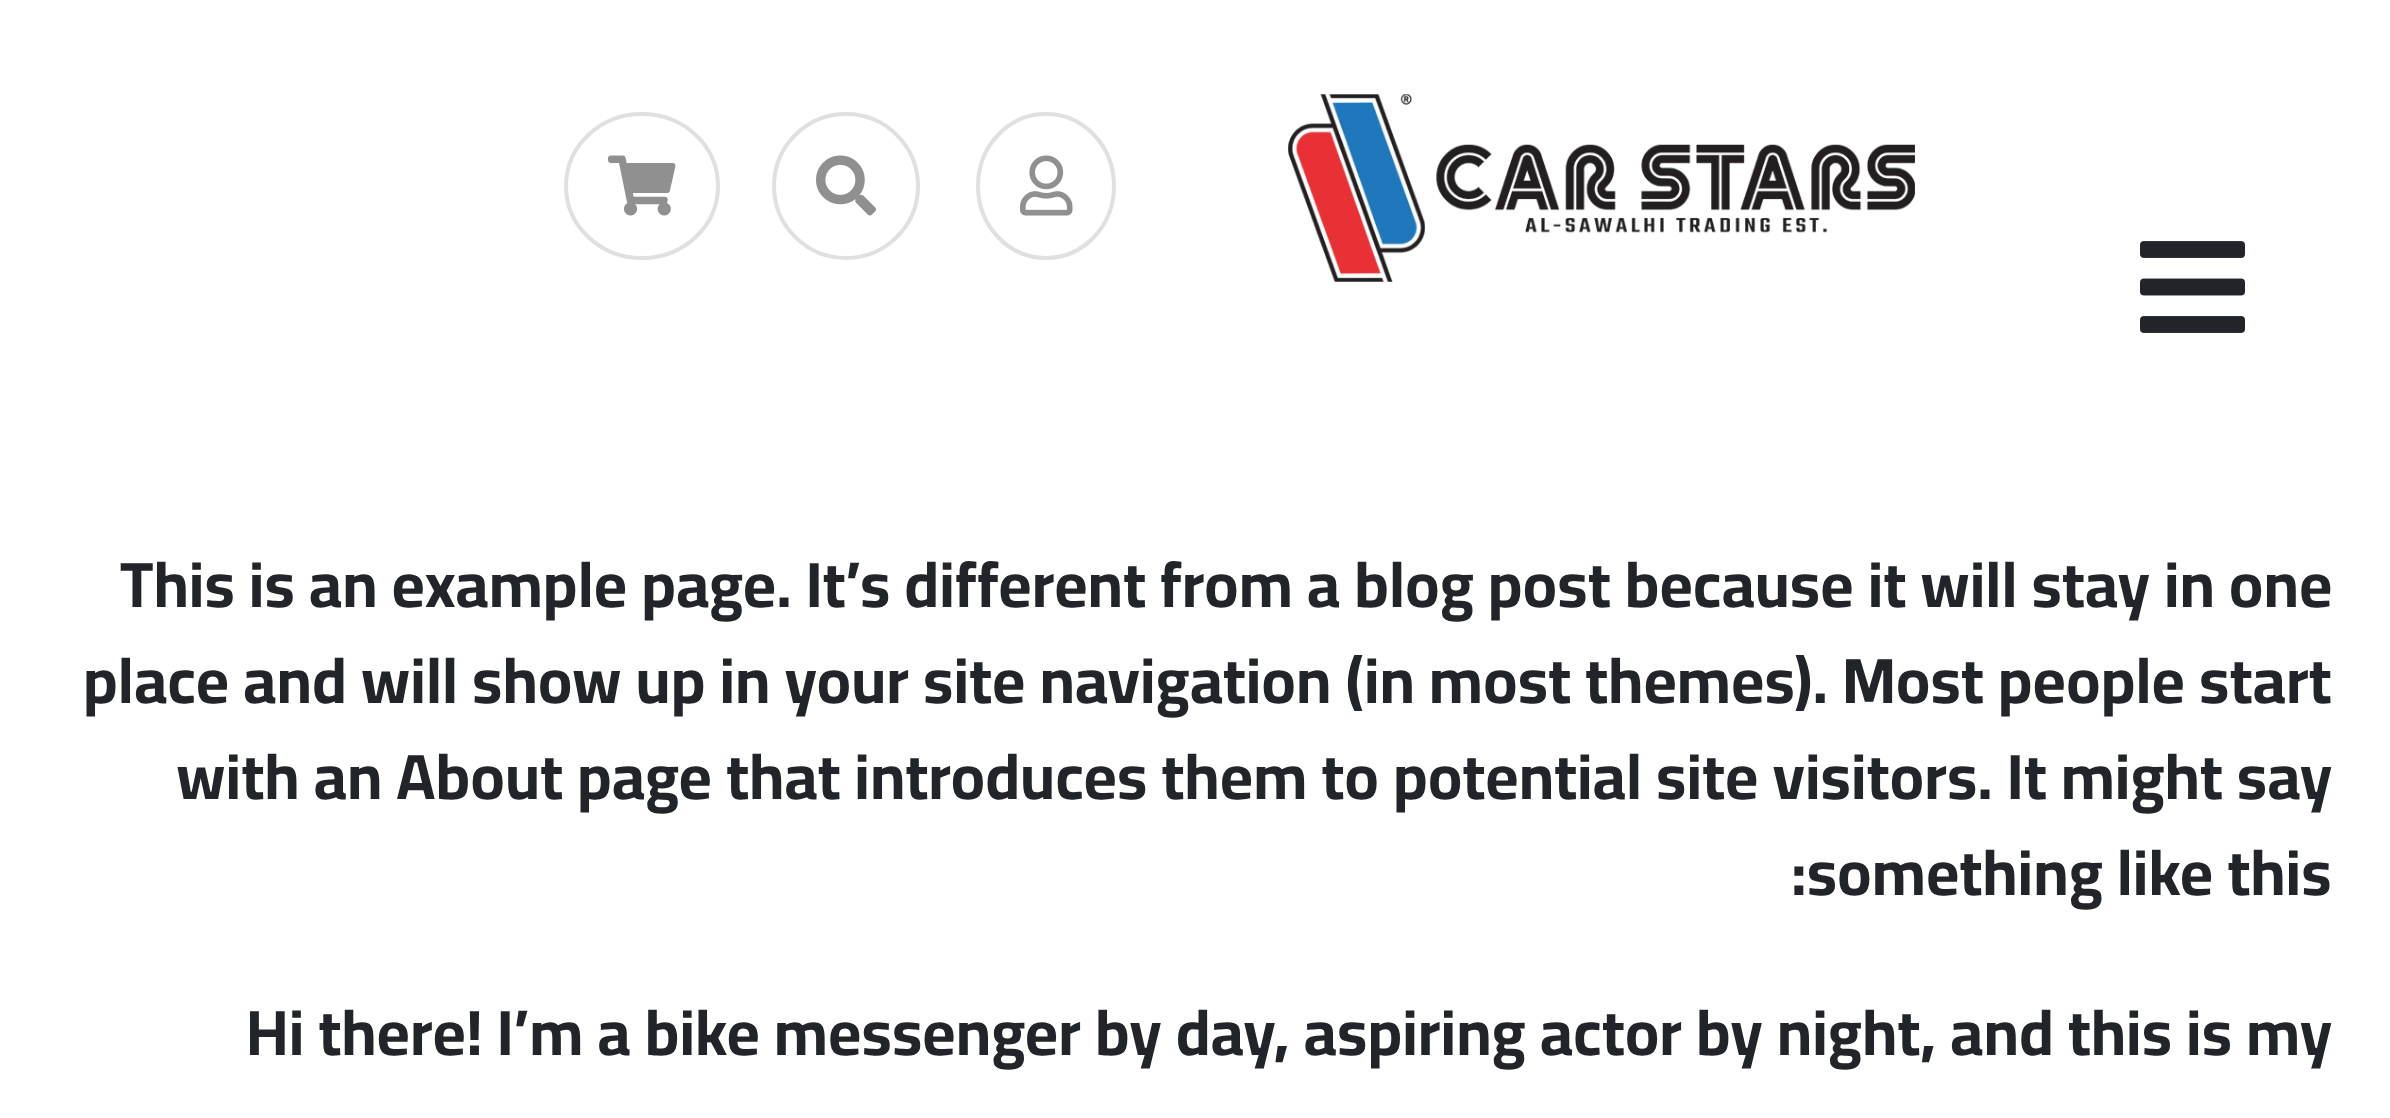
(async () => {
  const canvas = document.querySelector("canvas");
  canvas.width = 2390;
  canvas.height = 1118;
  const ctx = canvas.getContext("2d");
  ctx.miterLimit = 4;
  ctx.fontKerning = "normal";
  async function loadImage(src) {
    const img = new Image();
    img.src = src;
    await img.decode();
    return img;
  }
  let path;

  ctx.fillStyle = "#ffffff";
  ctx.fillRect(0, 0, 2390, 1118);
  path = new Path2D("M642 114C684 114 718 146 718 186C718 226 684 258 642 258C600 258 566 226 566 186C566 146 600 114 642 114Z");
  ctx.strokeStyle = "#e0e0e0";
  ctx.lineWidth = 4;
  ctx.stroke(path);
  ctx.drawImage(await loadImage("img/1.png"), 608, 155, 68, 61);
  ctx.beginPath();
  ctx.arc(846, 186, 72, 0, Math.PI * 2);
  ctx.stroke();
  ctx.drawImage(await loadImage("img/2.png"), 816, 155, 60, 61);
  path = new Path2D("M1046 114C1083.5 114 1114 146 1114 186C1114 226 1083.5 258 1046 258C1008.5 258 978 226 978 186C978 146 1008.5 114 1046 114Z");
  ctx.stroke(path);
  ctx.drawImage(await loadImage("img/3.png"), 1020, 155, 53, 61);
  ctx.drawImage(await loadImage("img/4.png"), 1288, 94, 627, 188);
  ctx.drawImage(await loadImage("img/5.png"), 2140, 241, 105, 92);
  ctx.font = "bold 64px Cairo";
  ctx.fillStyle = "#212529";
  for (const [text, x, y] of [
    ["This is an example page. It’s different from a blog post because it will stay in one", 120, 607],
    ["place and will show up in your site navigation (in most themes). Most people start", 83, 703],
    ["with an About page that introduces them to potential site visitors. It might say", 176, 799],
    [":something like this", 1791, 895],
    ["Hi there! I’m a bike messenger by day, aspiring actor by night, and this is my", 246, 1055],
  ]) {
    ctx.fillText(text, x, y);
  }
})();
